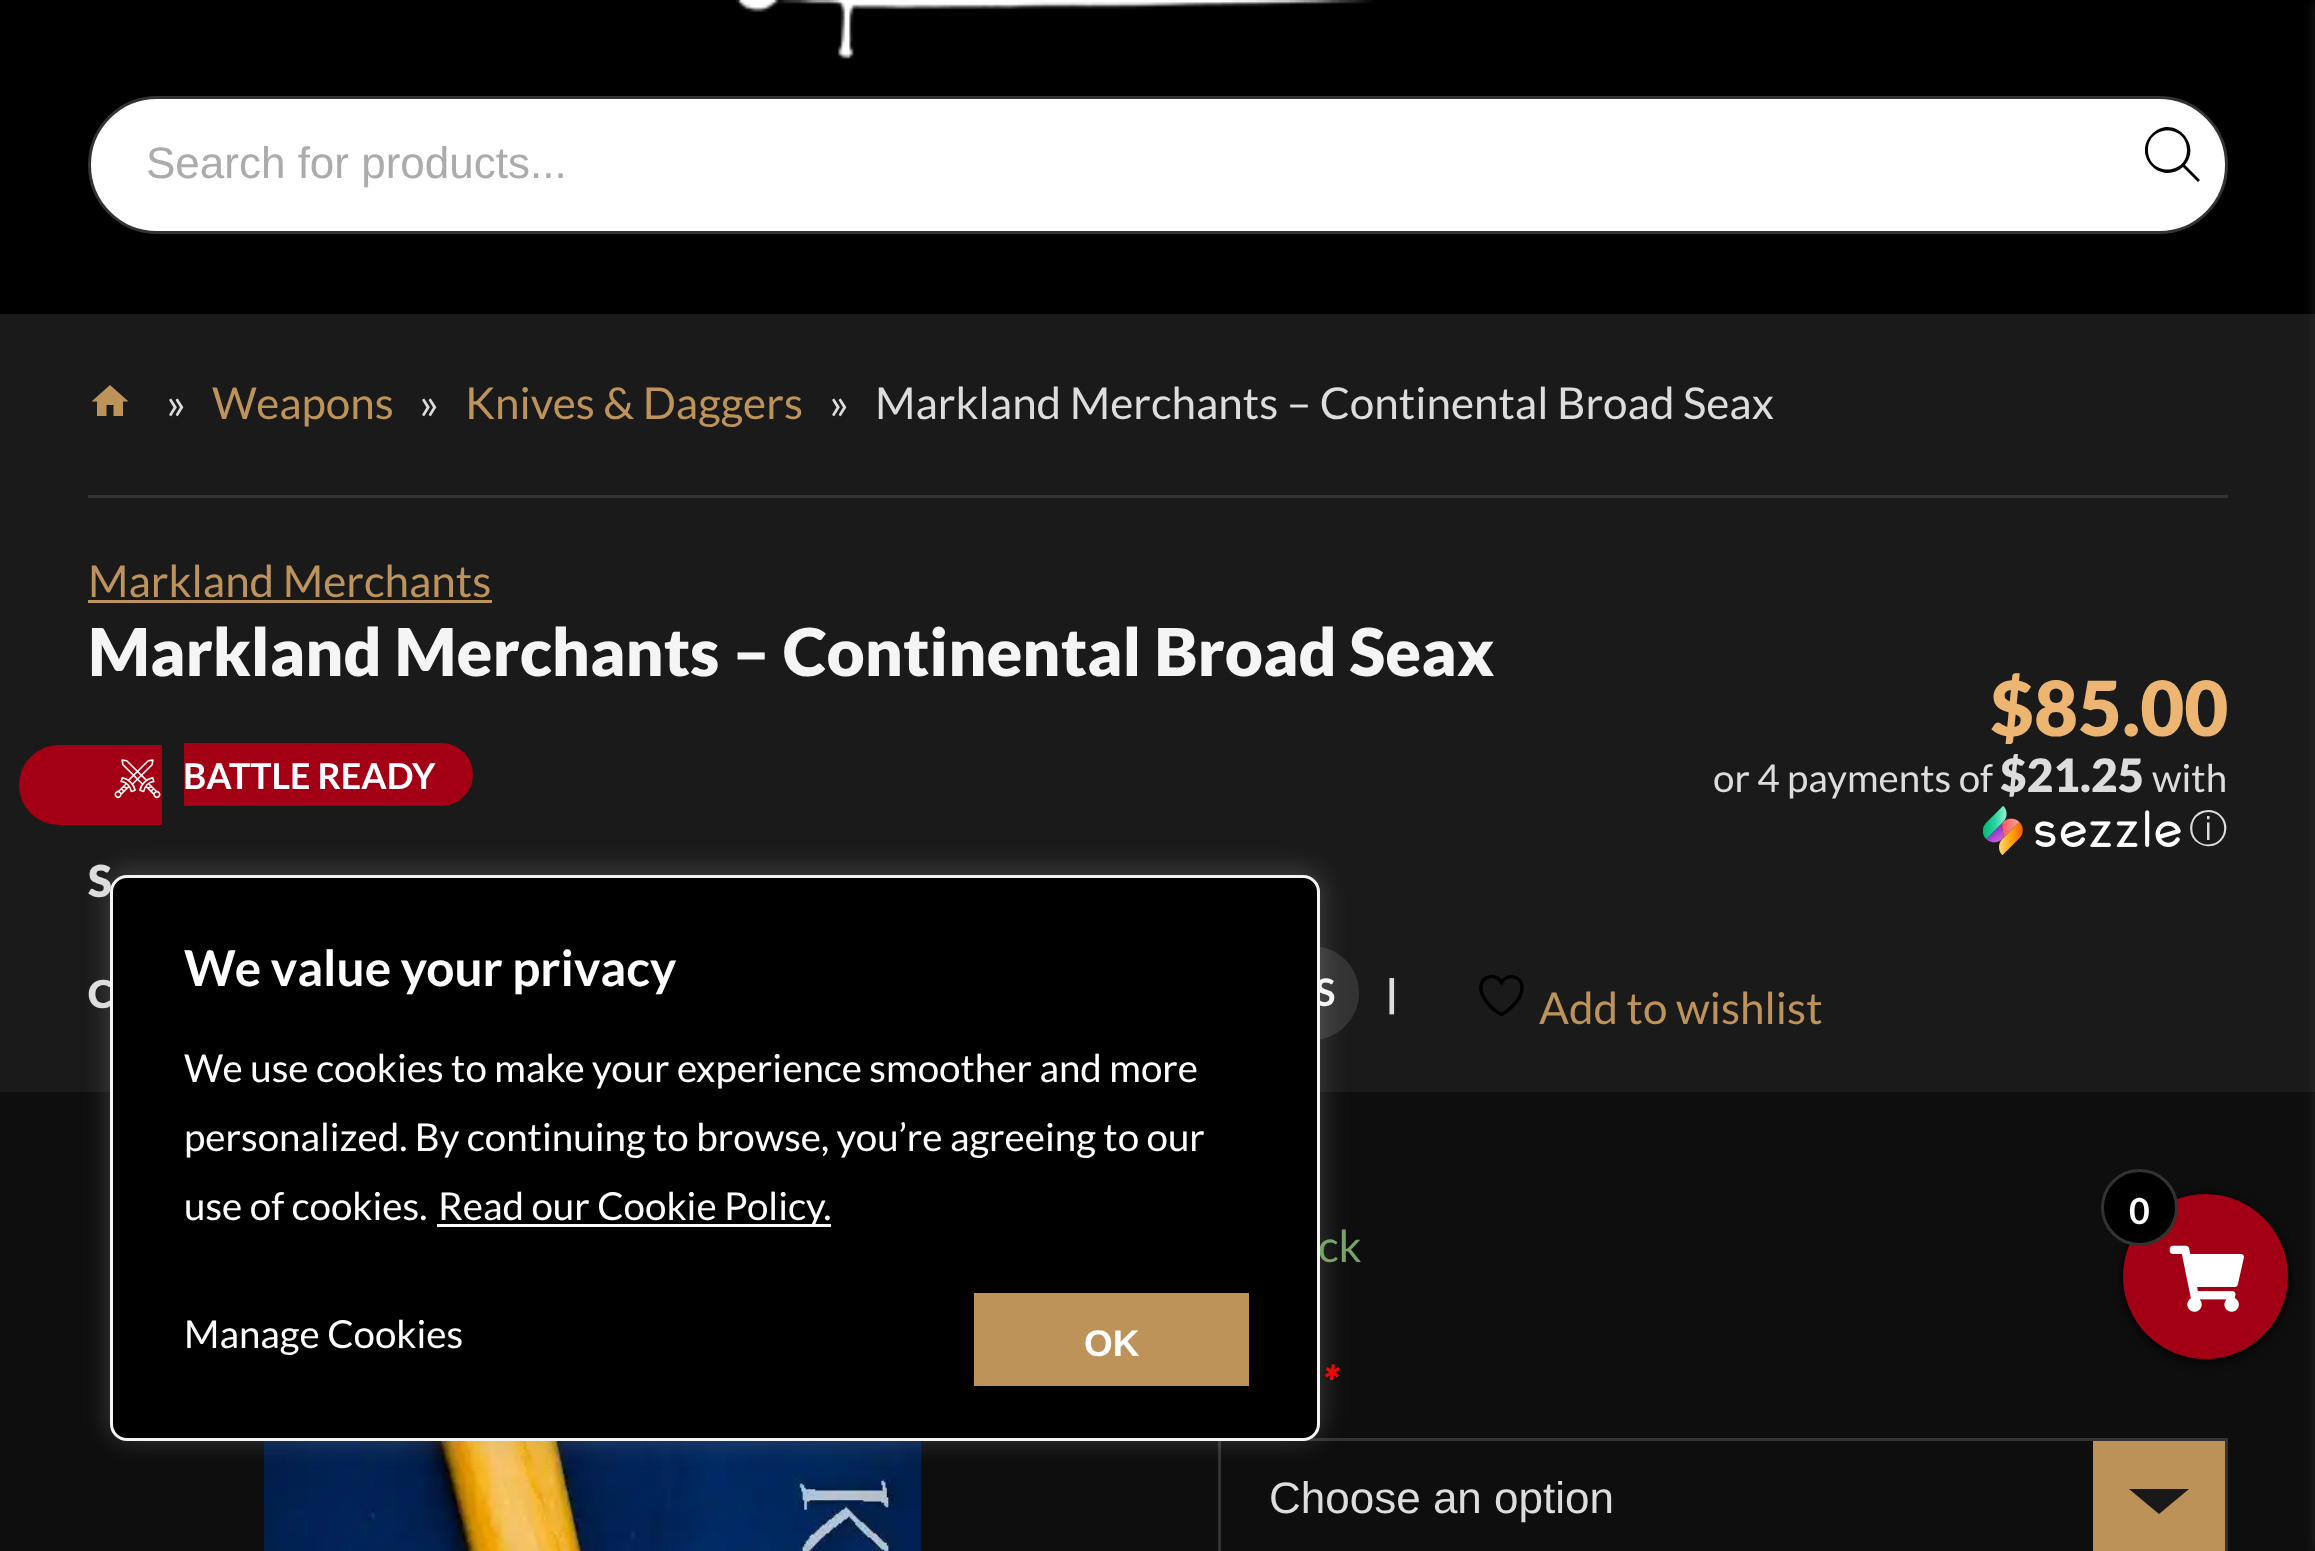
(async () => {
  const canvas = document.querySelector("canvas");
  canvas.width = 2315;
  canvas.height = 1551;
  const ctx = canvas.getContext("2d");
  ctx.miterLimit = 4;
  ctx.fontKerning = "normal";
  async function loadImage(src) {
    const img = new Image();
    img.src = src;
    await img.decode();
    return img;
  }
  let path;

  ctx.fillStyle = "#1a1a1a";
  ctx.fillRect(0, 0, 2315, 1551);
  ctx.fillStyle = "#000000";
  ctx.fillRect(0, 0, 2315, 314);
  ctx.drawImage(await loadImage("img/1.png"), 736, 0, 637, 59);
  ctx.fillStyle = "#ffffff";
  ctx.beginPath();
  ctx.roundRect(89.5, 97.5, 2137, 135, 67.5);
  ctx.fill();
  ctx.strokeStyle = "#333333";
  ctx.lineWidth = 3;
  ctx.stroke();
  ctx.save();
  ctx.beginPath();
  ctx.rect(2145, 110, 55, 88);
  ctx.clip();
  ctx.fillStyle = "#000000";
  path = new Path2D("M2200 180L2185 165C2203 143 2172 113 2152 134C2131 155 2161 186 2183 167L2198 182ZM2148 150C2148 124 2187 124 2187 150C2187 176 2148 176 2148 150Z");
  ctx.fill(path);
  ctx.restore();
  ctx.fillStyle = "#0e0e0e";
  ctx.fillRect(0, 1092, 2315, 459);
  ctx.fillStyle = "#333333";
  ctx.fillRect(88, 495, 2140, 3);
  ctx.fillStyle = "#be9359";
  path = new Path2D("M106.5 416H97V401.5H91.5L110 385L128.5 401.5H123V416H113.5V405H106.5Z");
  ctx.fill(path);
  ctx.fillRect(88, 600, 404, 3);
  ctx.fillStyle = "#a30015";
  ctx.beginPath();
  ctx.roundRect(19, 745, 143, 80, [40, 0, 0, 40]);
  ctx.fill();
  ctx.beginPath();
  ctx.roundRect(184, 743, 289, 63, [0, 31.5, 31.5, 0]);
  ctx.fill();
  ctx.drawImage(await loadImage("img/2.png"), 114, 759, 47, 40);
  ctx.drawImage(await loadImage("img/3.png"), 1983, 806, 198, 49);
  ctx.fillStyle = "#333333";
  ctx.beginPath();
  ctx.roundRect(762, 946, 597, 94, 47);
  ctx.fill();
  path = new Path2D("M1522 987C1522 975.5 1506 973 1501.5 983C1495.5 969.5 1472.5 978 1484 998C1488 1005 1494.5 1011 1501.5 1014.5C1501.5 1014.5 1522 1003.5 1522 987Z");
  ctx.strokeStyle = "#000000";
  ctx.lineWidth = 3.4;
  ctx.lineCap = "round";
  ctx.lineJoin = "round";
  ctx.stroke(path);
  ctx.drawImage(await loadImage("img/4.png"), 264, 1441, 658, 110);
  ctx.fillStyle = "#bd9258";
  ctx.fillRect(2093, 1441, 132, 110);
  ctx.fillStyle = "#191919";
  path = new Path2D("M2159 1514L2129 1489H2189Z");
  ctx.fill(path);
  ctx.strokeStyle = "#333333";
  ctx.lineWidth = 3;
  ctx.lineJoin = "miter";
  ctx.strokeRect(1219.5, 1439.5, 1007, 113);
  ctx.fillStyle = "rgba(172, 171, 171, 0.3)";
  ctx.filter = "blur(14px)";
  ctx.beginPath();
  ctx.roundRect(110, 872, 1210, 566, 17);
  ctx.fill();
  ctx.filter = "none";
  ctx.fillStyle = "rgba(66, 65, 65, 0.5)";
  ctx.filter = "blur(7px)";
  ctx.beginPath();
  ctx.rect(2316, 0, 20, 1551);
  ctx.fill();
  ctx.filter = "none";
  ctx.fillStyle = "#000000";
  ctx.filter = "blur(5.5px)";
  ctx.beginPath();
  ctx.roundRect(2123, 1196, 165, 165, 82.5);
  ctx.fill();
  ctx.filter = "none";
  ctx.fillStyle = "#a30015";
  ctx.beginPath();
  ctx.arc(2205.5, 1276.5, 82.5, 0, Math.PI * 2);
  ctx.fill();
  ctx.drawImage(await loadImage("img/5.png"), 2169, 1245, 75, 67);
  ctx.fillStyle = "#000000";
  ctx.beginPath();
  ctx.arc(2139.5, 1207.5, 37, 0, Math.PI * 2);
  ctx.fill();
  ctx.stroke();
  ctx.font = "44px Liberation Sans";
  ctx.fillStyle = "#ababab";
  ctx.fillText("Search for products...", 146, 178);
  ctx.font = "44px Lato";
  ctx.fillStyle = "#dddddd";
  ctx.fillText("»", 166, 419);
  ctx.fillStyle = "#be9359";
  ctx.fillText("Weapons", 212, 419);
  ctx.fillStyle = "#dddddd";
  ctx.fillText("»", 419, 419);
  ctx.fillStyle = "#be9359";
  ctx.fillText("Knives & Daggers", 465, 419);
  ctx.fillStyle = "#dddddd";
  ctx.fillText("»", 829, 419);
  ctx.fillText("Markland Merchants – Continental Broad Seax", 875, 419);
  ctx.fillStyle = "#be9359";
  ctx.fillText("Markland Merchants", 88, 597);
  ctx.font = "900 66px Lato";
  ctx.fillStyle = "#f5f5f5";
  ctx.fillText("Markland Merchants – Continental Broad Seax", 88, 676);
  ctx.font = "bold 35.75px Lato";
  ctx.fillStyle = "#ffffff";
  ctx.fillText("BATTLE READY", 183, 789);
  ctx.font = "900 76px Lato";
  ctx.fillStyle = "#edb572";
  ctx.fillText("$85.00", 1990, 736);
  ctx.font = "38.5px Lato";
  ctx.fillStyle = "#dddddd";
  ctx.fillText("or 4 payments of", 1713, 792);
  ctx.font = "900 46px Lato";
  ctx.fillText("$21.25", 2000, 792);
  ctx.font = "38.5px Lato";
  ctx.fillText("with", 2152, 792);
  ctx.font = "500 38.5px WenQuanYi Zen Hei";
  ctx.fillText("ⓘ", 2189, 842);
  ctx.font = "900 44px Lato";
  ctx.fillText("S", 88, 897);
  ctx.font = "900 38.5px Lato";
  ctx.fillText("C", 88, 1008);
  ctx.font = "bold 38px Lato";
  ctx.fillStyle = "#f5f5f5";
  ctx.fillText("S", 1315, 1006);
  ctx.font = "900 38.5px Lato";
  ctx.fillStyle = "#dddddd";
  ctx.fillText("|", 1386, 1008);
  ctx.font = "44px Lato";
  ctx.fillStyle = "#be9359";
  ctx.fillText("Add to wishlist", 1539, 1024);
  ctx.fillStyle = "#77a464";
  ctx.fillText("ck", 1318, 1262);
  ctx.font = "italic bold 44px Lato";
  ctx.fillStyle = "#ff0000";
  ctx.fillText("*", 1322, 1399);
  ctx.font = "44px Liberation Sans";
  ctx.fillStyle = "#dddddd";
  ctx.fillText("Choose an option", 1269, 1513);
  ctx.fillStyle = "#000000";
  ctx.beginPath();
  ctx.roundRect(111.5, 876.5, 1207, 563, 15.5);
  ctx.fill();
  ctx.strokeStyle = "#f4f4f4";
  ctx.stroke();
  ctx.font = "bold 49.5px Lato";
  ctx.fillStyle = "#ffffff";
  ctx.fillText("We value your privacy", 184, 986);
  ctx.font = "38.5px Lato";
  for (const [text, x, y] of [
    ["We use cookies to make your experience smoother and more", 184, 1082],
    ["personalized. By continuing to browse, you’re agreeing to our", 184, 1151],
    ["use of cookies.", 184, 1220],
  ]) {
    ctx.fillText(text, x, y);
  }
  ctx.fillStyle = "#fdfdfd";
  ctx.fillRect(437, 1224, 394, 3);
  ctx.fillStyle = "#ffffff";
  ctx.fillText("Read our Cookie Policy.", 438, 1220);
  ctx.fillText("Manage Cookies", 184, 1348);
  ctx.fillStyle = "#be9359";
  ctx.fillRect(974, 1293, 275, 93);
  ctx.font = "bold 37px Liberation Sans";
  ctx.fillStyle = "#ffffff";
  ctx.fillText("OK", 1084, 1356);
  ctx.font = "bold 35.75px Lato";
  ctx.fillText("0", 2129, 1224);
})();
